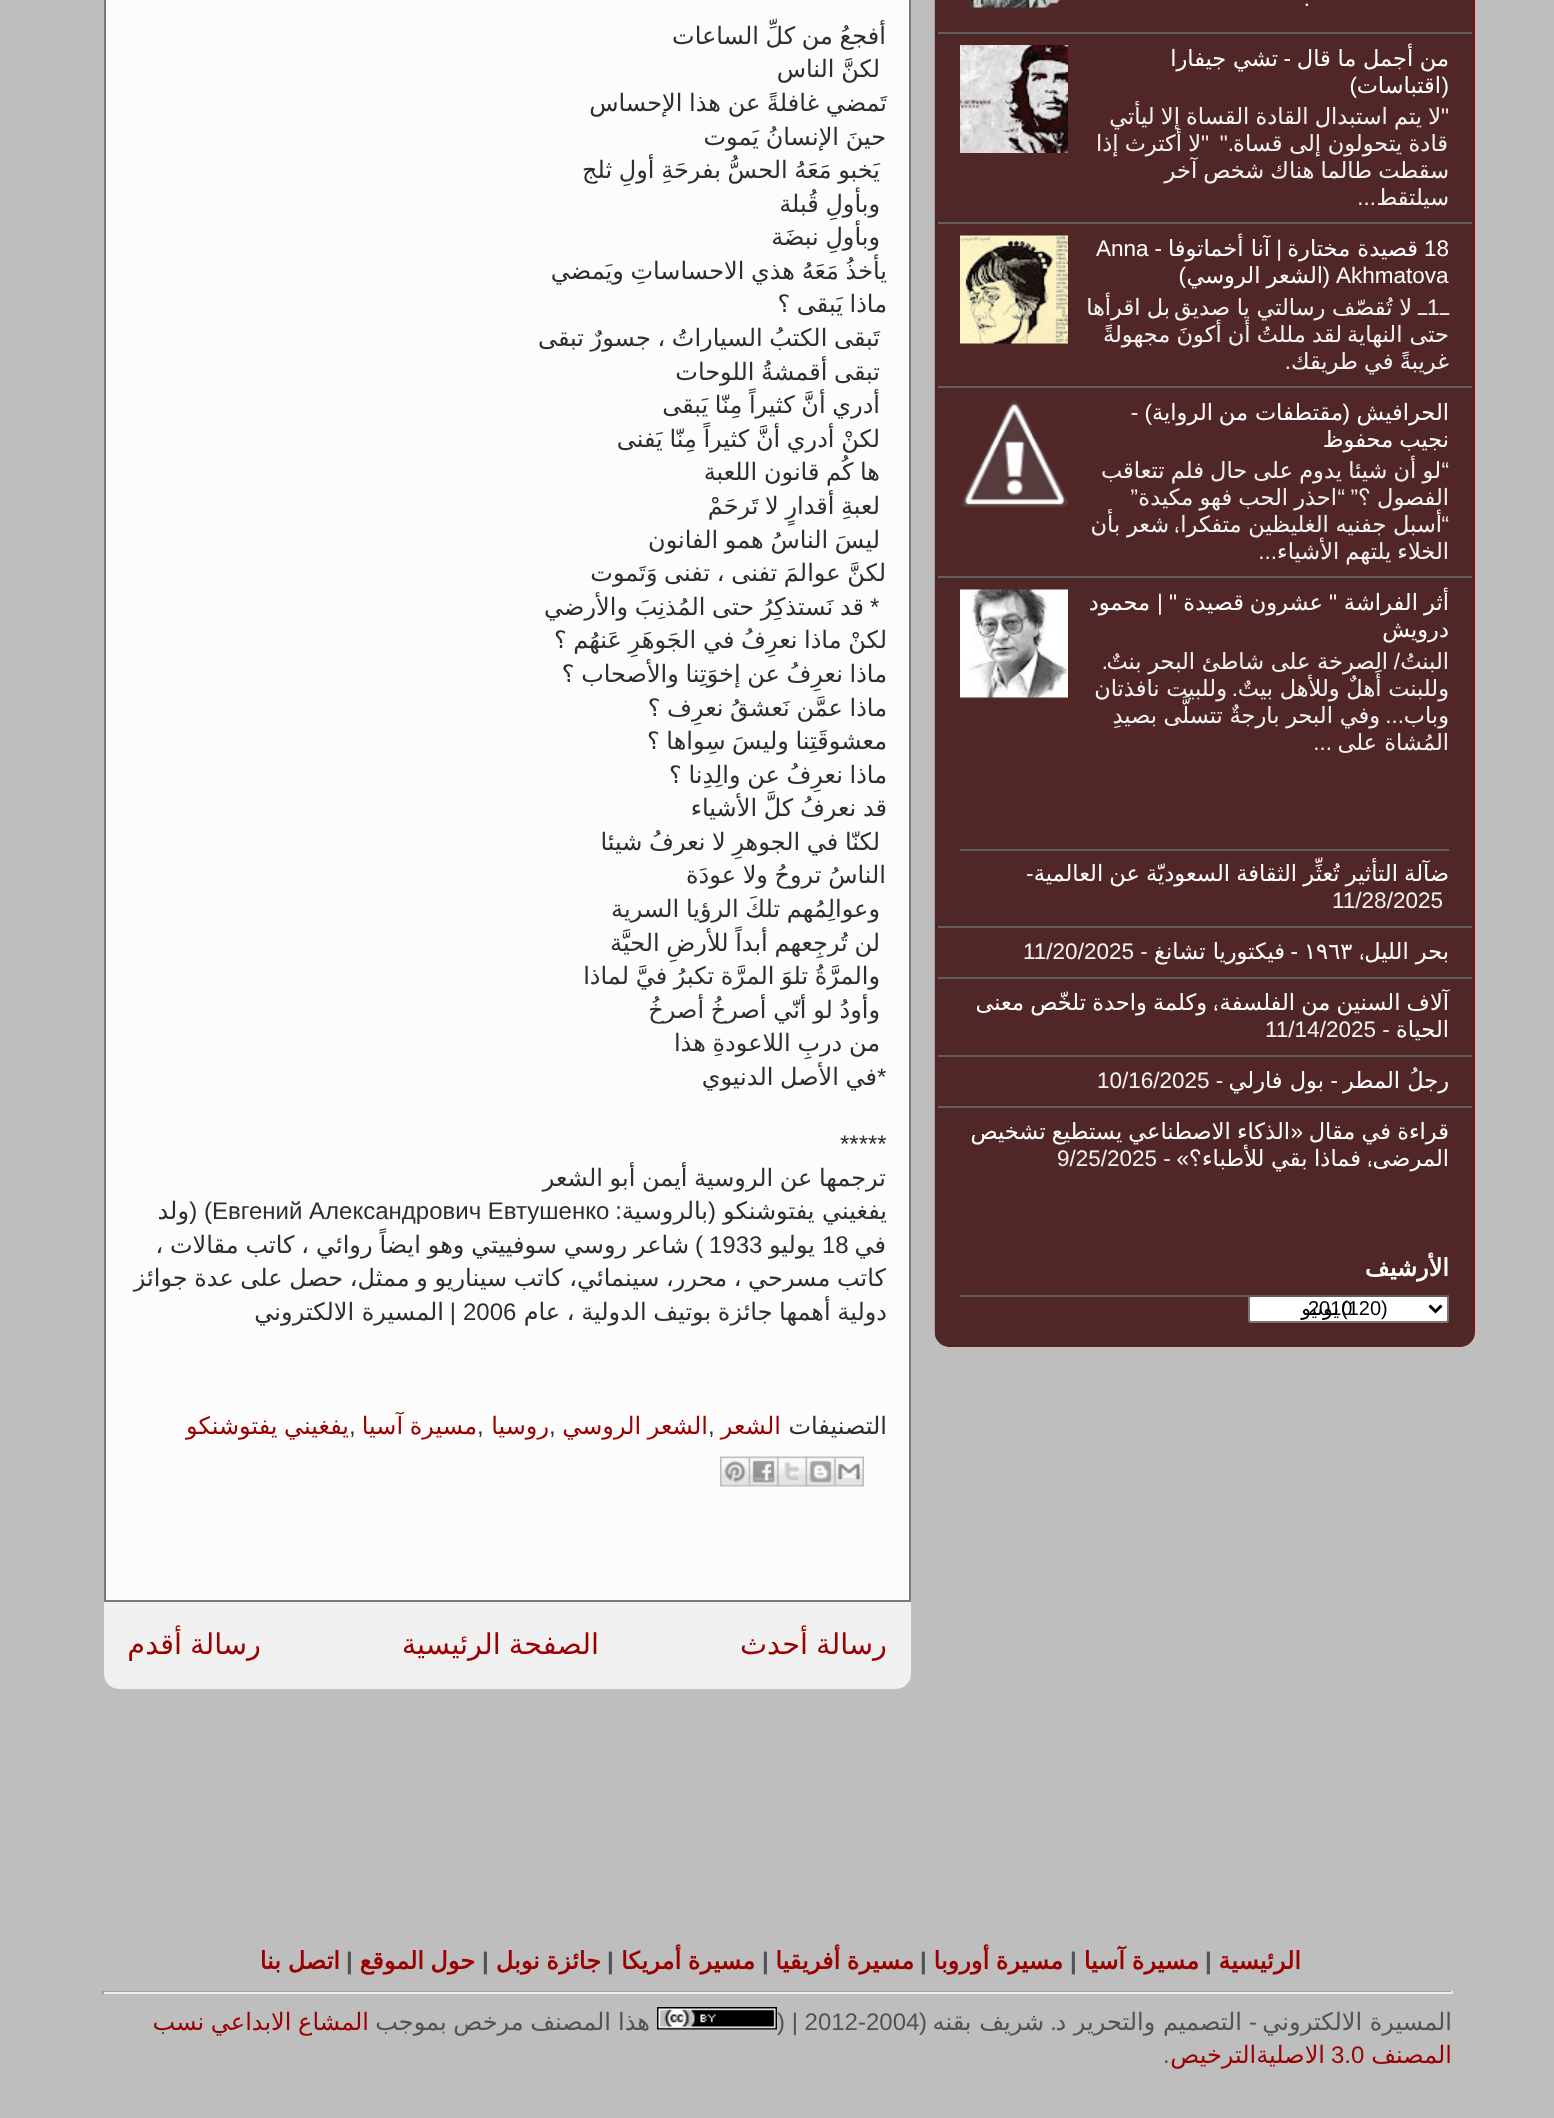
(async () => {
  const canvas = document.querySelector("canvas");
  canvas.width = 1554;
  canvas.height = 2118;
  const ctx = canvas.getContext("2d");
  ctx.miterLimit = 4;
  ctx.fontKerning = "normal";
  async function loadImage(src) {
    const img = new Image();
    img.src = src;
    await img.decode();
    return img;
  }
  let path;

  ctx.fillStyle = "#bebebe";
  ctx.fillRect(0, 0, 1554, 2118);
  ctx.fillStyle = "#ac0005";
  ctx.beginPath();
  ctx.roundRect(935, -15, 540, 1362, 15);
  ctx.fill();
  ctx.drawImage(await loadImage("img/1.png"), 934, 0, 541, 1347);
  ctx.fillStyle = "#5f5f5f";
  ctx.fillRect(938, 32, 534, 2);
  ctx.drawImage(await loadImage("img/2.png"), 969, 0, 91, 8);
  ctx.fillRect(938, 222, 534, 2);
  ctx.drawImage(await loadImage("img/3.png"), 960, 45, 108, 108);
  ctx.fillRect(938, 386, 534, 2);
  ctx.drawImage(await loadImage("img/4.png"), 960, 235, 108, 109);
  ctx.fillRect(938, 576, 534, 2);
  ctx.drawImage(await loadImage("img/5.png"), 961, 400, 107, 107);
  ctx.drawImage(await loadImage("img/6.png"), 960, 589, 108, 109);
  for (const [x, y, w, h, color] of [
    [960, 849, 489, 2, "#5f5f5f"],
    [938, 926, 534, 2, "#5f5f5f"],
    [938, 977, 534, 2, "#5f5f5f"],
    [938, 1055, 534, 2, "#5f5f5f"],
    [938, 1106, 534, 2, "#5f5f5f"],
  ]) {
    ctx.fillStyle = color;
    ctx.fillRect(x, y, w, h);
  }
  ctx.fillStyle = "#ffffff";
  ctx.beginPath();
  ctx.roundRect(1249, 1296, 199, 26, 2);
  ctx.fill();
  ctx.strokeStyle = "#767676";
  ctx.lineWidth = 2;
  ctx.stroke();
  ctx.fillStyle = "#5f5f5f";
  ctx.fillRect(960, 1295, 489, 2);
  path = new Path2D("M1429.5 1305.5L1435.5 1311.5L1441.5 1305.5");
  ctx.strokeStyle = "#000000";
  ctx.lineWidth = 3;
  ctx.stroke(path);
  ctx.fillStyle = "#fcfcfc";
  ctx.beginPath();
  ctx.rect(105, -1, 805, 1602);
  ctx.fill();
  ctx.strokeStyle = "#797979";
  ctx.lineWidth = 2;
  ctx.stroke();
  ctx.drawImage(await loadImage("img/7.png"), 835, 1456, 29, 31);
  ctx.drawImage(await loadImage("img/8.png"), 805, 1456, 31, 31);
  ctx.drawImage(await loadImage("img/9.png"), 777, 1456, 30, 31);
  ctx.drawImage(await loadImage("img/10.png"), 748, 1456, 31, 31);
  ctx.drawImage(await loadImage("img/11.png"), 720, 1456, 30, 31);
  ctx.fillStyle = "#f0f0f0";
  ctx.beginPath();
  ctx.roundRect(104, 1602, 807, 87, [0, 0, 15, 15]);
  ctx.fill();
  for (const [x, y, w, h, color] of [
    [102, 1991, 1350, 1, "#9f9f9f"],
    [1451, 1991, 2, 3, "#eeeeee"],
    [102, 1992, 1350, 2, "#eeeeee"],
    [102, 1991, 2, 3, "#9f9f9f"],
  ]) {
    ctx.fillStyle = color;
    ctx.fillRect(x, y, w, h);
  }
  ctx.direction = "rtl";
  ctx.font = "22.5px Liberation Sans";
  ctx.fillStyle = "#f2f2f2";
  ctx.fillText(".", 1310, 6);
  ctx.wordSpacing = "-0.5px";
  ctx.font = "22.5px DejaVu Sans";
  ctx.fillStyle = "#ffffff";
  ctx.fillText("من أجمل ما قال", 1449, 66);
  ctx.wordSpacing = "0px";
  ctx.font = "22.5px Liberation Sans";
  ctx.fillText("-", 1291, 66);
  ctx.wordSpacing = "-0.5px";
  ctx.font = "22.5px DejaVu Sans";
  ctx.fillText("تشي جيفارا", 1278, 66);
  ctx.wordSpacing = "0px";
  ctx.font = "22.5px Liberation Sans";
  ctx.fillText("(", 1449, 93);
  ctx.font = "22.5px DejaVu Sans";
  ctx.fillText("اقتباسات", 1441, 93);
  ctx.font = "22.5px Liberation Sans";
  ctx.fillText(")", 1357, 93);
  ctx.fillStyle = "#f2f2f2";
  ctx.fillText("\"", 1449, 124);
  ctx.wordSpacing = "-1px";
  ctx.font = "22.5px DejaVu Sans";
  ctx.fillText("لا يتم استبدال القادة القساة إلا ليأتي", 1441, 124);
  ctx.wordSpacing = "-0.5px";
  ctx.fillText("قادة يتحولون إلى قساة", 1448, 151);
  ctx.wordSpacing = "0px";
  ctx.font = "22.5px Liberation Sans";
  ctx.fillText(".\"", 1234, 151);
  ctx.fillText("\"", 1209, 151);
  ctx.wordSpacing = "-1px";
  ctx.font = "22.5px DejaVu Sans";
  ctx.fillText("لا أكترث إذا", 1201, 151);
  ctx.fillText("سقطت طالما هناك شخص آخر", 1449, 178);
  ctx.wordSpacing = "0px";
  ctx.fillText("سيلتقط", 1449, 205);
  ctx.font = "22.5px Liberation Sans";
  ctx.fillText("...", 1376, 205);
  ctx.direction = "ltr";
  ctx.fillStyle = "#ffffff";
  ctx.fillText("18", 1424, 256);
  ctx.direction = "rtl";
  ctx.font = "22.5px DejaVu Sans";
  ctx.fillText("قصيدة مختارة", 1418, 256);
  ctx.font = "22.5px Liberation Sans";
  ctx.fillText("|", 1282, 256);
  ctx.font = "22.5px DejaVu Sans";
  ctx.fillText("آنا أخماتوفا", 1270, 256);
  ctx.font = "22.5px Liberation Sans";
  ctx.fillText("-", 1162, 256);
  ctx.direction = "ltr";
  ctx.fillText("Anna", 1096, 256);
  ctx.fillText("Akhmatova", 1336, 283);
  ctx.direction = "rtl";
  ctx.fillText("(", 1330, 283);
  ctx.wordSpacing = "-1px";
  ctx.font = "22.5px DejaVu Sans";
  ctx.fillText("الشعر الروسي", 1323, 283);
  ctx.wordSpacing = "0px";
  ctx.font = "22.5px Liberation Sans";
  ctx.fillText(")", 1186, 283);
  ctx.font = "22.5px FreeSans";
  ctx.fillStyle = "#f2f2f2";
  ctx.fillText("ـ", 1449, 315);
  ctx.direction = "ltr";
  ctx.font = "22.5px Liberation Sans";
  ctx.fillText("1", 1427, 315);
  ctx.direction = "rtl";
  ctx.font = "22.5px FreeSans";
  ctx.fillText("ـ", 1427, 315);
  ctx.wordSpacing = "-0.5px";
  ctx.font = "22.5px DejaVu Sans";
  ctx.fillText("لا تُقصّف رسالتي يا صديق", 1412, 315);
  ctx.wordSpacing = "-1px";
  ctx.fillText("بل اقرأها", 1170, 315);
  ctx.wordSpacing = "0px";
  ctx.fillText("حتى النهاية", 1449, 342);
  ctx.wordSpacing = "-1px";
  ctx.fillText("لقد مللتُ أن أكونَ مجهولةً", 1342, 342);
  ctx.fillText("غريبةً في طريقك", 1449, 369);
  ctx.wordSpacing = "0px";
  ctx.font = "22.5px Liberation Sans";
  ctx.fillText(".", 1291, 369);
  ctx.font = "22.5px DejaVu Sans";
  ctx.fillStyle = "#ffffff";
  ctx.fillText("الحرافيش", 1449, 420);
  ctx.font = "22.5px Liberation Sans";
  ctx.fillText("(", 1350, 420);
  ctx.font = "22.5px DejaVu Sans";
  for (const [text, x, y] of [
    ["مقتطفات", 1343, 420],
    ["من", 1248, 420],
    ["الرواية", 1213, 420],
  ]) {
    ctx.fillText(text, x, y);
  }
  ctx.font = "22.5px Liberation Sans";
  ctx.fillText(") -", 1152, 420);
  ctx.wordSpacing = "-1px";
  ctx.font = "22.5px DejaVu Sans";
  ctx.fillText("نجيب محفوظ", 1449, 447);
  ctx.wordSpacing = "0px";
  ctx.font = "22.5px Liberation Sans";
  ctx.fillStyle = "#f2f2f2";
  ctx.fillText("“", 1449, 478);
  ctx.wordSpacing = "-1px";
  ctx.font = "22.5px DejaVu Sans";
  ctx.fillText("لو أن شيئا يدوم على حال فلم تتعاقب", 1441, 478);
  ctx.wordSpacing = "0px";
  ctx.fillText("الفصول", 1449, 505);
  ctx.font = "22.5px FreeSans";
  ctx.fillText("؟", 1371, 505);
  ctx.font = "22.5px Liberation Sans";
  ctx.fillText("”", 1358, 505);
  ctx.fillText("“", 1345, 505);
  ctx.wordSpacing = "-1px";
  ctx.font = "22.5px DejaVu Sans";
  ctx.fillText("احذر الحب فهو مكيدة", 1337, 505);
  ctx.wordSpacing = "0px";
  ctx.font = "22.5px Liberation Sans";
  ctx.fillText("”", 1138, 505);
  ctx.fillText("“", 1449, 532);
  ctx.wordSpacing = "-0.5px";
  ctx.font = "22.5px DejaVu Sans";
  ctx.fillText("أسبل جفنيه الغليظين متفكرا", 1442, 532);
  ctx.fillText("شعر بأن", 1169, 532);
  ctx.wordSpacing = "0px";
  ctx.font = "22.5px FreeSans";
  ctx.fillText("،", 1180, 532);
  ctx.wordSpacing = "-1px";
  ctx.font = "22.5px DejaVu Sans";
  ctx.fillText("الخلاء يلتهم الأشياء", 1449, 559);
  ctx.wordSpacing = "0px";
  ctx.font = "22.5px Liberation Sans";
  ctx.fillText("...", 1277, 559);
  ctx.wordSpacing = "-1px";
  ctx.font = "22.5px DejaVu Sans";
  ctx.fillStyle = "#ffffff";
  ctx.fillText("أثر الفراشة", 1449, 610);
  ctx.wordSpacing = "0px";
  ctx.font = "22.5px Liberation Sans";
  ctx.fillText("\"", 1337, 610);
  ctx.font = "22.5px DejaVu Sans";
  ctx.fillText("عشرون", 1323, 610);
  ctx.fillText("قصيدة", 1244, 610);
  ctx.font = "22.5px Liberation Sans";
  ctx.fillText("\" |", 1177, 610);
  ctx.font = "22.5px DejaVu Sans";
  ctx.fillText("محمود", 1150, 610);
  ctx.fillText("درويش", 1449, 637);
  ctx.fillStyle = "#f2f2f2";
  ctx.fillText("البنتُ", 1449, 669);
  ctx.font = "22.5px Liberation Sans";
  ctx.fillText("/", 1400, 669);
  ctx.wordSpacing = "-0.5px";
  ctx.font = "22.5px DejaVu Sans";
  ctx.fillText("الصرخة على شاطئ البحر بنتٌ", 1388, 669);
  ctx.wordSpacing = "0px";
  ctx.font = "22.5px Liberation Sans";
  ctx.fillText(".", 1108, 669);
  ctx.wordSpacing = "-0.5px";
  ctx.font = "22.5px DejaVu Sans";
  ctx.fillText("وللبنت أَهلٌ وللأهل بيتٌ", 1449, 696);
  ctx.wordSpacing = "0px";
  ctx.font = "22.5px Liberation Sans";
  ctx.fillText(".", 1238, 696);
  ctx.wordSpacing = "-0.5px";
  ctx.font = "22.5px DejaVu Sans";
  ctx.fillText("وللبيت نافذتان", 1227, 696);
  ctx.wordSpacing = "0px";
  ctx.fillText("وباب", 1449, 723);
  ctx.font = "22.5px Liberation Sans";
  ctx.fillText("...", 1404, 723);
  ctx.wordSpacing = "-0.5px";
  ctx.font = "22.5px DejaVu Sans";
  ctx.fillText("وفي البحر بارجةٌ تتسلَّى بصيدِ", 1380, 723);
  ctx.wordSpacing = "0px";
  ctx.fillText("المُشاة على", 1449, 750);
  ctx.font = "22.5px Liberation Sans";
  ctx.fillText("...", 1332, 750);
  ctx.wordSpacing = "-1px";
  ctx.font = "22.5px DejaVu Sans";
  ctx.fillStyle = "#ffffff";
  ctx.fillText("ضآلة التأثير تُعثِّر الثقافة السعوديّة عن العالمية", 1449, 881);
  ctx.wordSpacing = "0px";
  ctx.direction = "ltr";
  ctx.font = "22.5px Liberation Sans";
  ctx.fillStyle = "#f2f2f2";
  ctx.fillText("-", 1026, 881);
  ctx.fillText("11/28/2025", 1332, 908);
  ctx.direction = "rtl";
  ctx.font = "22.5px DejaVu Sans";
  ctx.fillStyle = "#ffffff";
  ctx.fillText("بحر الليل", 1449, 959);
  ctx.font = "22.5px FreeSans";
  ctx.fillText("،", 1365, 959);
  ctx.direction = "ltr";
  ctx.font = "22.5px DejaVu Sans";
  ctx.fillText("١٩٦٣", 1304, 959);
  ctx.direction = "rtl";
  ctx.font = "22.5px Liberation Sans";
  ctx.fillText("-", 1298, 959);
  ctx.font = "22.5px DejaVu Sans";
  ctx.fillText("فيكتوريا تشانغ", 1285, 959);
  ctx.direction = "ltr";
  ctx.font = "22.5px Liberation Sans";
  ctx.fillStyle = "#f2f2f2";
  ctx.fillText("11/20/2025 -", 1023, 959);
  ctx.wordSpacing = "-1px";
  ctx.direction = "rtl";
  ctx.font = "22.5px DejaVu Sans";
  ctx.fillStyle = "#ffffff";
  ctx.fillText("آلاف السنين من الفلسفة", 1449, 1010);
  ctx.wordSpacing = "0px";
  ctx.font = "22.5px FreeSans";
  ctx.fillText("،", 1219, 1010);
  ctx.wordSpacing = "-1px";
  ctx.font = "22.5px DejaVu Sans";
  ctx.fillText("وكلمة واحدة تلخّص معنى", 1207, 1010);
  ctx.wordSpacing = "0px";
  ctx.fillText("الحياة", 1449, 1037);
  ctx.direction = "ltr";
  ctx.font = "22.5px Liberation Sans";
  ctx.fillStyle = "#f2f2f2";
  ctx.fillText("11/14/2025 -", 1265, 1037);
  ctx.direction = "rtl";
  ctx.font = "22.5px DejaVu Sans";
  ctx.fillStyle = "#ffffff";
  ctx.fillText("رجلُ المطر", 1449, 1088);
  ctx.font = "22.5px Liberation Sans";
  ctx.fillText("-", 1338, 1088);
  ctx.font = "22.5px DejaVu Sans";
  ctx.fillText("بول فارلي", 1324, 1088);
  ctx.direction = "ltr";
  ctx.font = "22.5px Liberation Sans";
  ctx.fillStyle = "#f2f2f2";
  ctx.fillText("10/16/2025 -", 1097, 1088);
  ctx.wordSpacing = "-1px";
  ctx.direction = "rtl";
  ctx.font = "22.5px DejaVu Sans";
  ctx.fillStyle = "#ffffff";
  ctx.fillText("قراءة في مقال", 1449, 1139);
  ctx.wordSpacing = "0px";
  ctx.font = "22.5px Liberation Sans";
  ctx.fillText("«", 1303, 1139);
  ctx.wordSpacing = "-1px";
  ctx.font = "22.5px DejaVu Sans";
  ctx.fillText("الذكاء الاصطناعي يستطيع تشخيص", 1290, 1139);
  ctx.wordSpacing = "0px";
  ctx.fillText("المرضى", 1449, 1166);
  ctx.font = "22.5px FreeSans";
  ctx.fillText("،", 1373, 1166);
  ctx.wordSpacing = "-0.5px";
  ctx.font = "22.5px DejaVu Sans";
  ctx.fillText("فماذا بقي للأطباء", 1361, 1166);
  ctx.wordSpacing = "0px";
  ctx.font = "22.5px FreeSans";
  ctx.fillText("؟", 1202, 1166);
  ctx.font = "22.5px Liberation Sans";
  ctx.fillText("»", 1189, 1166);
  ctx.direction = "ltr";
  ctx.fillStyle = "#f2f2f2";
  ctx.fillText("9/25/2025 -", 1057, 1166);
  ctx.direction = "rtl";
  ctx.font = "bold 24px DejaVu Sans";
  ctx.fillStyle = "#ffffff";
  ctx.fillText("الأرشيف", 1449, 1276);
  ctx.font = "20px DejaVu Sans";
  ctx.fillStyle = "#000000";
  ctx.fillText("يونيو", 1339, 1315);
  ctx.direction = "ltr";
  ctx.font = "20px Liberation Sans";
  ctx.fillText("2010", 1308, 1315);
  ctx.fillText("(120)", 1341, 1315);
  ctx.wordSpacing = "-1px";
  ctx.direction = "rtl";
  ctx.font = "24px DejaVu Sans";
  ctx.fillStyle = "#2e2e2e";
  for (const [text, x, y] of [
    ["أفجعُ من كلِّ الساعات", 886, 44],
    ["لكنَّ الناس", 880, 77],
    ["تَمضي غافلةً عن هذا الإحساس", 887, 111],
    ["حينَ الإنسانُ يَموت", 886, 145],
    ["يَخبو مَعَهُ الحسُّ بفرحَةِ أولِ ثلج", 880, 178],
    ["وبأولِ قُبلة", 880, 212],
    ["وبأولِ نبضَة", 880, 245],
    ["يأخذُ مَعَهُ هذي الاحساساتِ ويَمضي", 887, 279],
    ["ماذا يَبقى ؟", 887, 312],
    ["تَبقى الكتبُ السياراتُ ، جسورٌ تبقى", 880, 346],
    ["تبقى أقمشةُ اللوحات", 880, 380],
    ["أدري أنَّ كثيراً مِنّا يَبقى", 880, 413],
    ["لكنْ أدري أنَّ كثيراً مِنّا يَفنى", 880, 447],
    ["ها كُم قانون اللعبة", 880, 480],
    ["لعبةِ أقدارٍ لا تَرحَمْ", 880, 514],
    ["ليسَ الناسُ همو الفانون", 880, 548],
    ["لكنَّ عوالمَ تفنى ، تفنى وَتَموت", 886, 581],
  ]) {
    ctx.fillText(text, x, y);
  }
  ctx.wordSpacing = "0px";
  ctx.direction = "ltr";
  ctx.font = "24px Liberation Sans";
  ctx.fillText("*", 870, 615);
  ctx.wordSpacing = "-1px";
  ctx.direction = "rtl";
  ctx.font = "24px DejaVu Sans";
  for (const [text, x, y] of [
    ["قد نَستذكِرُ حتى المُذنِبَ والأرضي", 864, 615],
    ["لكنْ ماذا نعرِفُ في الجَوهَرِ عَنهُم ؟", 887, 648],
    ["ماذا نعرِفُ عن إخوَتِنا والأصحاب ؟", 887, 682],
    ["ماذا عمَّن نَعشقُ نعرِف ؟", 887, 716],
    ["معشوقَتِنا وليسَ سِواها ؟", 887, 749],
    ["ماذا نعرِفُ عن والِدِنا ؟", 887, 783],
    ["قد نعرفُ كلَّ الأشياء", 887, 816],
    ["لكنّا في الجوهرِ لا نعرفُ شيئا", 880, 850],
    ["الناسُ تروحُ ولا عودَة", 886, 883],
    ["وعوالِمُهم تلكَ الرؤيا السرية", 880, 917],
    ["لن تُرجِعهم أبداً للأرضِ الحيَّة", 880, 951],
    ["والمرَّةُ تلوَ المرَّة تكبرُ فيَّ لماذا", 880, 984],
    ["وأودُ لو أنّي أصرخُ أصرخُ", 880, 1018],
    ["من دربِ اللاعودةِ هذا", 880, 1051],
  ]) {
    ctx.fillText(text, x, y);
  }
  ctx.wordSpacing = "0px";
  ctx.direction = "ltr";
  ctx.font = "24px Liberation Sans";
  ctx.fillText("*", 877, 1085);
  ctx.wordSpacing = "-1px";
  ctx.direction = "rtl";
  ctx.font = "24px DejaVu Sans";
  ctx.fillText("في الأصل الدنيوي", 877, 1085);
  ctx.wordSpacing = "0px";
  ctx.direction = "ltr";
  ctx.font = "24px Liberation Sans";
  ctx.fillText("*****", 840, 1152);
  ctx.wordSpacing = "-1px";
  ctx.direction = "rtl";
  ctx.font = "24px DejaVu Sans";
  ctx.fillText("ترجمها عن الروسية أيمن أبو الشعر", 886, 1186);
  ctx.wordSpacing = "0px";
  ctx.fillText("يفغيني يفتوشنكو", 887, 1219);
  ctx.font = "24px Liberation Sans";
  ctx.fillText("(", 716, 1219);
  ctx.font = "24px DejaVu Sans";
  ctx.fillText("بالروسية", 708, 1219);
  ctx.font = "24px Liberation Sans";
  ctx.fillText(":", 622, 1219);
  ctx.direction = "ltr";
  ctx.fillText("Евгений Александрович Евтушенко", 212, 1219);
  ctx.direction = "rtl";
  ctx.fillText(") (", 212, 1219);
  ctx.font = "24px DejaVu Sans";
  ctx.fillText("ولد", 189, 1219);
  ctx.fillText("في", 886, 1253);
  ctx.direction = "ltr";
  ctx.font = "24px Liberation Sans";
  ctx.fillText("18", 822, 1253);
  ctx.direction = "rtl";
  ctx.font = "24px DejaVu Sans";
  ctx.fillText("يوليو", 815, 1253);
  ctx.direction = "ltr";
  ctx.font = "24px Liberation Sans";
  ctx.fillText("1933", 709, 1253);
  ctx.direction = "rtl";
  ctx.fillText(")", 703, 1253);
  ctx.wordSpacing = "-0.75px";
  ctx.font = "24px DejaVu Sans";
  ctx.fillText("شاعر روسي سوفييتي وهو ايضاً روائي ، كاتب مقالات ،", 689, 1253);
  ctx.wordSpacing = "-1px";
  ctx.fillText("كاتب مسرحي ، محرر، سينمائي، كاتب سيناريو و ممثل، حصل على عدة جوائز", 886, 1286);
  ctx.fillText("دولية أهمها جائزة بوتيف الدولية ، عام", 887, 1320);
  ctx.wordSpacing = "0px";
  ctx.direction = "ltr";
  ctx.font = "24px Liberation Sans";
  ctx.fillText("2006", 463, 1320);
  ctx.direction = "rtl";
  ctx.fillText("|", 456, 1320);
  ctx.font = "24px DejaVu Sans";
  ctx.fillText("المسيرة الالكتروني", 444, 1320);
  ctx.fillText("التصنيفات", 887, 1434);
  ctx.fillStyle = "#990000";
  ctx.fillText("الشعر", 781, 1434);
  ctx.direction = "ltr";
  ctx.font = "24px Liberation Sans";
  ctx.fillStyle = "#2e2e2e";
  ctx.fillText(",", 708, 1434);
  ctx.wordSpacing = "-1px";
  ctx.direction = "rtl";
  ctx.font = "24px DejaVu Sans";
  ctx.fillStyle = "#990000";
  ctx.fillText("الشعر الروسي", 708, 1434);
  ctx.wordSpacing = "0px";
  ctx.direction = "ltr";
  ctx.font = "24px Liberation Sans";
  ctx.fillStyle = "#2e2e2e";
  ctx.fillText(",", 549, 1434);
  ctx.direction = "rtl";
  ctx.font = "24px DejaVu Sans";
  ctx.fillStyle = "#990000";
  ctx.fillText("روسيا", 549, 1434);
  ctx.direction = "ltr";
  ctx.font = "24px Liberation Sans";
  ctx.fillStyle = "#2e2e2e";
  ctx.fillText(",", 477, 1434);
  ctx.wordSpacing = "-1px";
  ctx.direction = "rtl";
  ctx.font = "24px DejaVu Sans";
  ctx.fillStyle = "#990000";
  ctx.fillText("مسيرة آسيا", 477, 1434);
  ctx.wordSpacing = "0px";
  ctx.direction = "ltr";
  ctx.font = "24px Liberation Sans";
  ctx.fillStyle = "#2e2e2e";
  ctx.fillText(",", 349, 1434);
  ctx.wordSpacing = "-1px";
  ctx.direction = "rtl";
  ctx.font = "24px DejaVu Sans";
  ctx.fillStyle = "#990000";
  ctx.fillText("يفغيني يفتوشنكو", 349, 1434);
  ctx.font = "28.75px DejaVu Sans";
  for (const [text, x, y] of [
    ["رسالة أحدث", 887, 1654],
    ["الصفحة الرئيسية", 599, 1654],
    ["رسالة أقدم", 261, 1654],
  ]) {
    ctx.fillText(text, x, y);
  }
  ctx.wordSpacing = "0px";
  ctx.font = "bold 24px DejaVu Sans";
  ctx.fillText("الرئيسية", 1301, 1969);
  ctx.direction = "ltr";
  ctx.font = "bold 24px Liberation Sans";
  ctx.fillStyle = "#525252";
  ctx.fillText("|", 1205, 1969);
  ctx.direction = "rtl";
  ctx.font = "bold 24px DejaVu Sans";
  ctx.fillStyle = "#990000";
  ctx.fillText("مسيرة", 1199, 1969);
  ctx.fillText("آسيا", 1125, 1969);
  ctx.direction = "ltr";
  ctx.font = "bold 24px Liberation Sans";
  ctx.fillStyle = "#525252";
  ctx.fillText("|", 1070, 1969);
  ctx.wordSpacing = "-1px";
  ctx.direction = "rtl";
  ctx.font = "bold 24px DejaVu Sans";
  ctx.fillStyle = "#990000";
  ctx.fillText("مسيرة أوروبا", 1063, 1969);
  ctx.wordSpacing = "0px";
  ctx.direction = "ltr";
  ctx.font = "bold 24px Liberation Sans";
  ctx.fillStyle = "#525252";
  ctx.fillText("|", 920, 1969);
  ctx.wordSpacing = "-1px";
  ctx.direction = "rtl";
  ctx.font = "bold 24px DejaVu Sans";
  ctx.fillStyle = "#990000";
  ctx.fillText("مسيرة أفريقيا", 914, 1969);
  ctx.wordSpacing = "0px";
  ctx.direction = "ltr";
  ctx.font = "bold 24px Liberation Sans";
  ctx.fillStyle = "#525252";
  ctx.fillText("|", 762, 1969);
  ctx.wordSpacing = "-1px";
  ctx.direction = "rtl";
  ctx.font = "bold 24px DejaVu Sans";
  ctx.fillStyle = "#990000";
  ctx.fillText("مسيرة أمريكا", 755, 1969);
  ctx.wordSpacing = "0px";
  ctx.direction = "ltr";
  ctx.font = "bold 24px Liberation Sans";
  ctx.fillStyle = "#525252";
  ctx.fillText("|", 607, 1969);
  ctx.wordSpacing = "-1px";
  ctx.direction = "rtl";
  ctx.font = "bold 24px DejaVu Sans";
  ctx.fillStyle = "#990000";
  ctx.fillText("جائزة نوبل", 601, 1969);
  ctx.wordSpacing = "0px";
  ctx.direction = "ltr";
  ctx.font = "bold 24px Liberation Sans";
  ctx.fillStyle = "#525252";
  ctx.fillText("|", 482, 1969);
  ctx.direction = "rtl";
  ctx.font = "bold 24px DejaVu Sans";
  ctx.fillStyle = "#990000";
  ctx.fillText("حول", 475, 1969);
  ctx.fillText("الموقع", 424, 1969);
  ctx.direction = "ltr";
  ctx.font = "bold 24px Liberation Sans";
  ctx.fillStyle = "#525252";
  ctx.fillText("|", 346, 1969);
  ctx.wordSpacing = "-1px";
  ctx.direction = "rtl";
  ctx.font = "bold 24px DejaVu Sans";
  ctx.fillStyle = "#990000";
  ctx.fillText("اتصل بنا", 340, 1969);
  ctx.wordSpacing = "0px";
  ctx.font = "24px DejaVu Sans";
  ctx.fillStyle = "#525252";
  ctx.fillText("المسيرة الالكتروني", 1452, 2030);
  ctx.font = "24px Liberation Sans";
  ctx.fillText("-", 1257, 2030);
  ctx.font = "24px DejaVu Sans";
  ctx.fillText("التصميم والتحرير د", 1242, 2030);
  ctx.fillText("شريف بقنه", 1044, 2030);
  ctx.font = "24px Liberation Sans";
  ctx.fillText("(", 927, 2030);
  ctx.direction = "ltr";
  ctx.fillText(") | 2012-2004", 777, 2030);
  ctx.drawImage(await loadImage("img/12.png"), 657, 2007, 120, 23);
  ctx.direction = "rtl";
  ctx.font = "24px DejaVu Sans";
  ctx.fillText("هذا", 650, 2030);
  ctx.wordSpacing = "-1px";
  ctx.fillText("المصنف مرخص بموجب", 611, 2030);
  ctx.fillStyle = "#990000";
  ctx.fillText("المشاع الابداعي نسب", 369, 2030);
  ctx.wordSpacing = "0px";
  ctx.font = "24px Liberation Sans";
  ctx.fillStyle = "#525252";
  ctx.fillText(".", 1057, 2030);
  ctx.font = "24px DejaVu Sans";
  ctx.fillStyle = "#990000";
  ctx.fillText("المصنف", 1452, 2063);
  ctx.direction = "ltr";
  ctx.font = "24px Liberation Sans";
  ctx.fillText("3.0", 1331, 2063);
  ctx.direction = "rtl";
  ctx.font = "24px DejaVu Sans";
  ctx.fillText("الاصليةالترخيص", 1325, 2063);
  ctx.direction = "ltr";
  ctx.font = "24px Liberation Sans";
  ctx.fillStyle = "#525252";
  ctx.fillText(".", 1163, 2063);
})();
